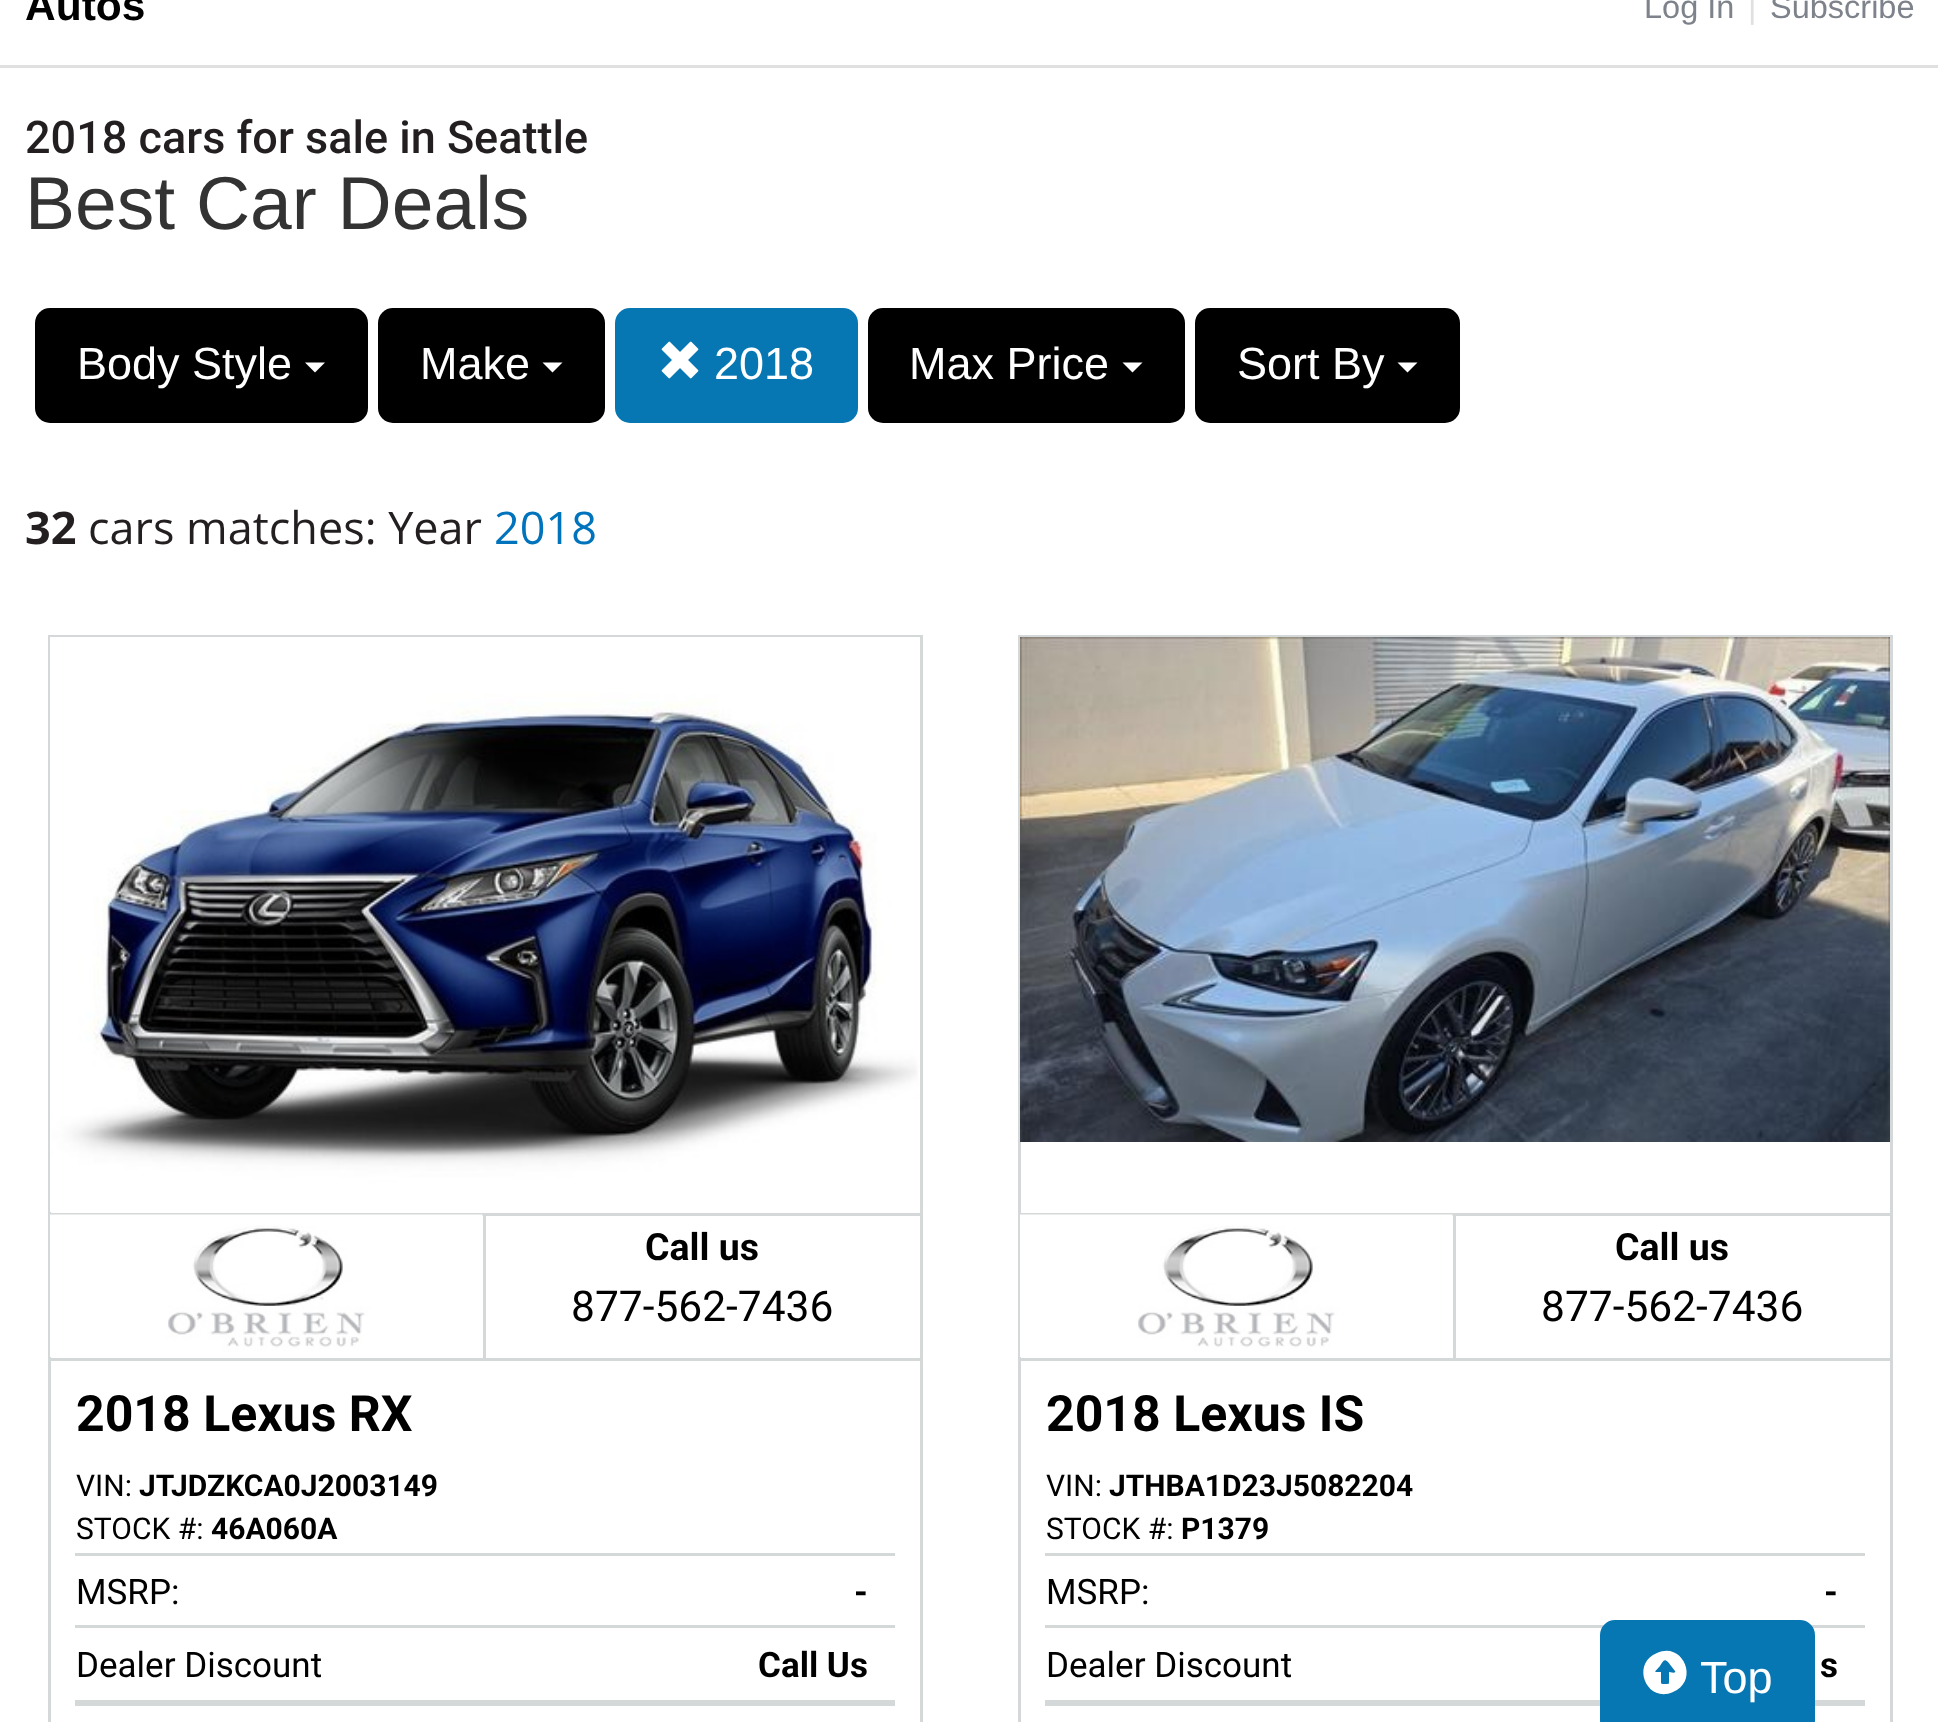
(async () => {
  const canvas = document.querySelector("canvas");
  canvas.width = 1938;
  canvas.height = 1722;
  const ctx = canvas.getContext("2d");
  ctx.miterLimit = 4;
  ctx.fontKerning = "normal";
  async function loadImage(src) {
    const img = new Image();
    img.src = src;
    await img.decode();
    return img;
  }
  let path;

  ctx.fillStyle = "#ffffff";
  ctx.fillRect(0, 0, 1938, 1722);
  ctx.fillStyle = "#e0e0e0";
  ctx.fillRect(0, 65, 1938, 3);
  ctx.fillStyle = "#000000";
  ctx.beginPath();
  ctx.roundRect(35, 308, 333, 115, 15);
  ctx.fill();
  ctx.fillStyle = "#ffffff";
  path = new Path2D("M305 362.5H325L315 372.5Z");
  ctx.fill(path);
  ctx.fillStyle = "#000000";
  ctx.beginPath();
  ctx.roundRect(378, 308, 227, 115, 15);
  ctx.fill();
  ctx.fillStyle = "#ffffff";
  path = new Path2D("M542.5 362.5H562.5L552.5 372.5Z");
  ctx.fill(path);
  ctx.fillStyle = "#0777b3";
  ctx.beginPath();
  ctx.roundRect(615, 308, 243, 115, 15);
  ctx.fill();
  ctx.drawImage(await loadImage("img/1.png"), 661, 341, 38, 38);
  ctx.fillStyle = "#000000";
  ctx.beginPath();
  ctx.roundRect(868, 308, 317, 115, 15);
  ctx.fill();
  ctx.fillStyle = "#ffffff";
  path = new Path2D("M1122.5 362.5H1142.5L1132.5 372.5Z");
  ctx.fill(path);
  ctx.fillStyle = "#000000";
  ctx.beginPath();
  ctx.roundRect(1195, 308, 265, 115, 15);
  ctx.fill();
  ctx.fillStyle = "#ffffff";
  path = new Path2D("M1397.5 362.5H1417.5L1407.5 372.5Z");
  ctx.fill(path);
  ctx.strokeStyle = "#d4d8d9";
  ctx.lineWidth = 3;
  ctx.strokeRect(49.5, 636.5, 872, 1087);
  ctx.drawImage(await loadImage("img/2.png"), 50, 637, 870, 575);
  for (const [x, y, w, h, color] of [
    [50, 1213, 435, 3, "#d4d8d9"],
    [483, 1213, 3, 147, "#d4d8d9"],
    [50, 1358, 870, 3, "#d4d8d9"],
  ]) {
    ctx.fillStyle = color;
    ctx.fillRect(x, y, w, h);
  }
  ctx.drawImage(await loadImage("img/3.png"), 50, 1214, 433, 143);
  for (const [x, y, w, h, color] of [
    [485, 1213, 435, 3, "#d4d8d9"],
    [75, 1553, 820, 3, "#d4d8d9"],
    [75, 1625, 820, 3, "#d4d8d9"],
    [75, 1700, 820, 6, "#d4d8d9"],
  ]) {
    ctx.fillStyle = color;
    ctx.fillRect(x, y, w, h);
  }
  ctx.strokeRect(1019.5, 636.5, 872, 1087);
  ctx.drawImage(await loadImage("img/4.png"), 1020, 637, 870, 505);
  for (const [x, y, w, h, color] of [
    [1020, 1213, 435, 3, "#d4d8d9"],
    [1453, 1213, 3, 147, "#d4d8d9"],
    [1020, 1358, 870, 3, "#d4d8d9"],
  ]) {
    ctx.fillStyle = color;
    ctx.fillRect(x, y, w, h);
  }
  ctx.drawImage(await loadImage("img/3.png"), 1020, 1214, 433, 143);
  for (const [x, y, w, h, color] of [
    [1455, 1213, 435, 3, "#d4d8d9"],
    [1045, 1553, 820, 3, "#d4d8d9"],
    [1045, 1625, 820, 3, "#d4d8d9"],
    [1045, 1700, 820, 6, "#d4d8d9"],
  ]) {
    ctx.fillStyle = color;
    ctx.fillRect(x, y, w, h);
  }
  ctx.fillStyle = "#0777b3";
  ctx.beginPath();
  ctx.roundRect(1601.5, 1621.5, 212, 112, 13.5);
  ctx.fill();
  ctx.strokeStyle = "#0777b3";
  ctx.stroke();
  ctx.fillStyle = "#ffffff";
  path = new Path2D("M1657 1653C1683 1641 1700 1681 1673 1692C1647 1704 1630 1664 1657 1653ZM1675 1671L1668 1662C1664 1658 1663 1661 1660 1666C1654 1673 1653 1672 1661 1672V1681C1661 1684 1661 1684 1665 1684C1669 1684 1669 1684 1669 1681V1672C1669 1672 1677 1674 1675 1671Z");
  ctx.fill(path);
  ctx.font = "bold 42.5px Liberation Sans";
  ctx.fillStyle = "#000000";
  ctx.fillText("Autos", 25, 20);
  ctx.font = "32.5px Liberation Sans";
  ctx.fillStyle = "#7e838b";
  ctx.fillText("Log In", 1644, 18);
  ctx.fillStyle = "#e0e0e0";
  ctx.fillText("|", 1748, 18);
  ctx.fillStyle = "#7e838b";
  ctx.fillText("Subscribe", 1770, 18);
  ctx.font = "500 45px Roboto";
  ctx.fillStyle = "#231f20";
  ctx.fillText("2018 cars for sale in Seattle", 25, 153);
  ctx.font = "75px Liberation Sans";
  ctx.fillStyle = "#333333";
  ctx.fillText("Best Car Deals", 25, 229);
  ctx.font = "45px Liberation Sans";
  ctx.fillStyle = "#ffffff";
  for (const [text, x, y] of [
    ["Body Style", 77, 379],
    ["Make", 420, 379],
    ["2018", 714, 379],
    ["Max Price", 909, 379],
    ["Sort By", 1237, 379],
  ]) {
    ctx.fillText(text, x, y);
  }
  ctx.font = "bold 45px Open Sans";
  ctx.fillStyle = "#231f20";
  ctx.fillText("32", 25, 544);
  ctx.font = "45px Open Sans";
  ctx.fillText("cars matches: Year", 88, 544);
  ctx.fillStyle = "#0073bd";
  ctx.fillText("2018", 494, 544);
  ctx.font = "bold 37.5px Roboto";
  ctx.fillStyle = "#000000";
  ctx.fillText("Call us", 645, 1260);
  ctx.font = "42.5px Roboto";
  ctx.fillText("877-562-7436", 571, 1321);
  ctx.font = "bold 50px Roboto";
  ctx.fillText("2018 Lexus RX", 76, 1431);
  ctx.font = "30px Roboto";
  ctx.fillText("VIN:", 76, 1496);
  ctx.font = "bold 30px Roboto";
  ctx.fillText("JTJDZKCA0J2003149", 139, 1496);
  ctx.font = "30px Roboto";
  ctx.fillText("STOCK #:", 76, 1539);
  ctx.font = "bold 30px Roboto";
  ctx.fillText("46A060A", 211, 1539);
  ctx.font = "35px Roboto";
  ctx.fillText("MSRP:", 76, 1604);
  ctx.font = "bold 35px Roboto";
  ctx.fillText("-", 854, 1604);
  ctx.font = "35px Roboto";
  ctx.fillText("Dealer Discount", 76, 1677);
  ctx.font = "bold 35px Roboto";
  ctx.fillText("Call Us", 758, 1677);
  ctx.font = "bold 37.5px Roboto";
  ctx.fillText("Call us", 1615, 1260);
  ctx.font = "42.5px Roboto";
  ctx.fillText("877-562-7436", 1541, 1321);
  ctx.font = "bold 50px Roboto";
  ctx.fillText("2018 Lexus IS", 1046, 1431);
  ctx.font = "30px Roboto";
  ctx.fillText("VIN:", 1046, 1496);
  ctx.font = "bold 30px Roboto";
  ctx.fillText("JTHBA1D23J5082204", 1109, 1496);
  ctx.font = "30px Roboto";
  ctx.fillText("STOCK #:", 1046, 1539);
  ctx.font = "bold 30px Roboto";
  ctx.fillText("P1379", 1181, 1539);
  ctx.font = "35px Roboto";
  ctx.fillText("MSRP:", 1046, 1604);
  ctx.font = "bold 35px Roboto";
  ctx.fillText("-", 1824, 1604);
  ctx.font = "35px Roboto";
  ctx.fillText("Dealer Discount", 1046, 1677);
  ctx.font = "bold 35px Roboto";
  ctx.fillText("s", 1820, 1677);
  ctx.font = "45px Liberation Sans";
  ctx.fillStyle = "#ffffff";
  ctx.fillText("Top", 1700, 1693);
})();
